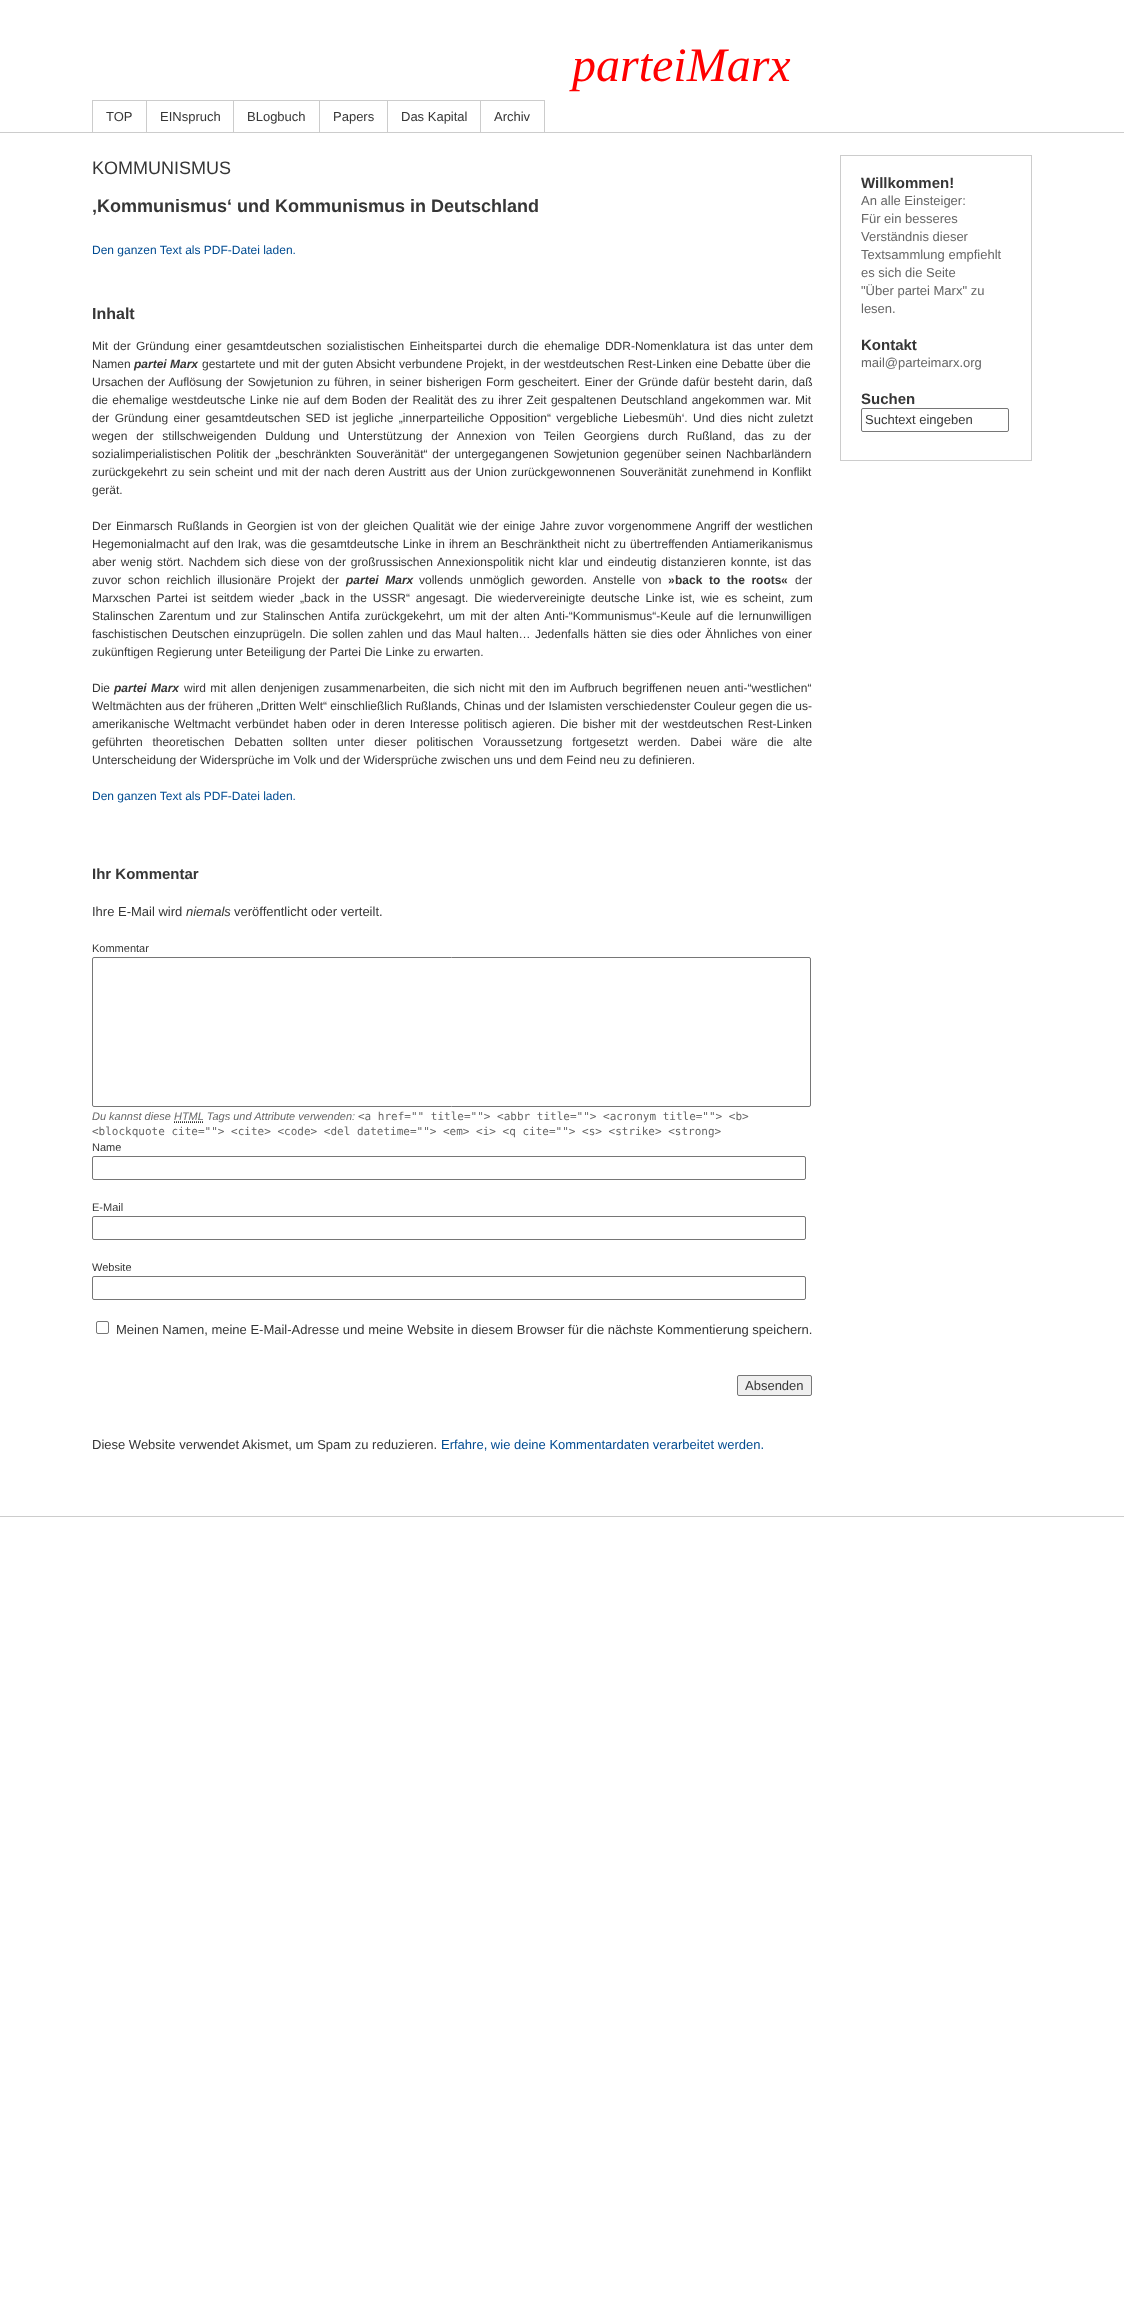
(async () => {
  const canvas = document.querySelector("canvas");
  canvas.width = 1124;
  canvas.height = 2323;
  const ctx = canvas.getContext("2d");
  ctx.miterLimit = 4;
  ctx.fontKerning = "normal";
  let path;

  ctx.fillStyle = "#ffffff";
  ctx.fillRect(0, 0, 1124, 2323);
  for (const [x, y, w, h, color] of [
    [0, 132, 1124, 1, "#cccccc"],
    [544, 100, 1, 33, "#cccccc"],
    [92, 100, 452, 1, "#cccccc"],
    [92, 100, 1, 33, "#cccccc"],
    [146, 100, 1, 33, "#cccccc"],
    [233, 100, 1, 33, "#cccccc"],
    [319, 100, 1, 33, "#cccccc"],
    [387, 100, 1, 33, "#cccccc"],
    [480, 100, 1, 33, "#cccccc"],
  ]) {
    ctx.fillStyle = color;
    ctx.fillRect(x, y, w, h);
  }
  ctx.beginPath();
  ctx.roundRect(92.5, 957.5, 718, 149, 1.5);
  ctx.strokeStyle = "#767676";
  ctx.stroke();
  path = new Path2D("M174 1121.5H203.5");
  ctx.strokeStyle = "#666666";
  ctx.setLineDash([1, 1]);
  ctx.stroke(path);
  ctx.beginPath();
  ctx.roundRect(92.5, 1156.5, 713, 23, 1.5);
  ctx.strokeStyle = "#767676";
  ctx.setLineDash([]);
  ctx.stroke();
  ctx.beginPath();
  ctx.roundRect(92.5, 1216.5, 713, 23, 1.5);
  ctx.stroke();
  ctx.beginPath();
  ctx.roundRect(92.5, 1276.5, 713, 23, 1.5);
  ctx.stroke();
  ctx.beginPath();
  ctx.roundRect(96.5, 1321.5, 12, 12, 1.5);
  ctx.stroke();
  ctx.fillStyle = "#efefef";
  ctx.beginPath();
  ctx.roundRect(737.5, 1375.5, 74, 20, 1.5);
  ctx.fill();
  ctx.stroke();
  ctx.strokeStyle = "#cccccc";
  ctx.strokeRect(840.5, 155.5, 191, 305);
  ctx.beginPath();
  ctx.roundRect(861.5, 408.5, 147, 23, 1.5);
  ctx.strokeStyle = "#767676";
  ctx.stroke();
  ctx.fillStyle = "#cccccc";
  ctx.fillRect(0, 1516, 1124, 1);
  ctx.font = "italic 48px Liberation Serif";
  ctx.fillStyle = "#ff0000";
  ctx.fillText("parteiMarx", 572, 81);
  ctx.font = "13px Liberation Sans";
  ctx.fillStyle = "#363636";
  for (const [text, x, y] of [
    ["TOP", 106, 121],
    ["EINspruch", 160, 121],
    ["BLogbuch", 247, 121],
    ["Papers", 333, 121],
    ["Das Kapital", 401, 121],
    ["Archiv", 494, 121],
  ]) {
    ctx.fillText(text, x, y);
  }
  ctx.font = "18px Liberation Sans";
  ctx.fillText("KOMMUNISMUS", 92, 174);
  ctx.font = "bold 18px Liberation Sans";
  ctx.fillText("‚Kommunismus‘ und Kommunismus in Deutschland", 92, 212);
  ctx.font = "12px Liberation Sans";
  ctx.fillStyle = "#004b91";
  ctx.fillText("Den ganzen Text als PDF-Datei laden.", 92, 254);
  ctx.font = "bold 16px Liberation Sans";
  ctx.fillStyle = "#363636";
  ctx.fillText("Inhalt", 92, 319);
  ctx.wordSpacing = "2px";
  ctx.font = "12px Liberation Sans";
  ctx.fillText("Mit der Gründung einer gesamtdeutschen sozialistischen Einheitspartei durch die ehemalige DDR-Nomenklatura ist das unter dem", 92, 350);
  ctx.wordSpacing = "0px";
  ctx.fillText("Namen", 92, 368);
  ctx.font = "italic bold 12px Liberation Sans";
  ctx.fillText("partei Marx", 134, 368);
  ctx.wordSpacing = "0.25px";
  ctx.font = "12px Liberation Sans";
  ctx.fillText("gestartete und mit der guten Absicht verbundene Projekt, in der westdeutschen Rest-Linken eine Debatte über die", 202, 368);
  ctx.wordSpacing = "0.9px";
  ctx.fillText("Ursachen der Auflösung der Sowjetunion zu führen, in seiner bisherigen Form gescheitert. Einer der Gründe dafür besteht darin, daß", 92, 386);
  ctx.wordSpacing = "1px";
  ctx.fillText("die ehemalige westdeutsche Linke nie auf dem Boden der Realität des zu ihrer Zeit gespaltenen Deutschland angekommen war. Mit", 92, 404);
  ctx.wordSpacing = "2px";
  ctx.fillText("der Gründung einer gesamtdeutschen SED ist jegliche „innerparteiliche Opposition“ vergebliche Liebesmüh‘. Und dies nicht zuletzt", 92, 422);
  ctx.wordSpacing = "5.5px";
  ctx.fillText("wegen der stillschweigenden Duldung und Unterstützung der Annexion von Teilen Georgiens durch Rußland, das zu der", 92, 440);
  ctx.wordSpacing = "1.5px";
  ctx.fillText("sozialimperialistischen Politik der „beschränkten Souveränität“ der untergegangenen Sowjetunion gegenüber seinen Nachbarländern", 92, 458);
  ctx.wordSpacing = "1px";
  ctx.fillText("zurückgekehrt zu sein scheint und mit der nach deren Austritt aus der Union zurückgewonnenen Souveränität zunehmend in Konflikt", 92, 476);
  ctx.wordSpacing = "0px";
  ctx.fillText("gerät.", 92, 494);
  ctx.wordSpacing = "1.25px";
  ctx.fillText("Der Einmarsch Rußlands in Georgien ist von der gleichen Qualität wie der einige Jahre zuvor vorgenommene Angriff der westlichen", 92, 530);
  ctx.wordSpacing = "0.75px";
  ctx.fillText("Hegemonialmacht auf den Irak, was die gesamtdeutsche Linke in ihrem an Beschränktheit nicht zu übertreffenden Antiamerikanismus", 92, 548);
  ctx.wordSpacing = "1.5px";
  ctx.fillText("aber wenig stört. Nachdem sich diese von der großrussischen Annexionspolitik nicht klar und eindeutig distanzieren konnte, ist das", 92, 566);
  ctx.wordSpacing = "3.25px";
  ctx.fillText("zuvor schon reichlich illusionäre Projekt der", 92, 584);
  ctx.font = "italic bold 12px Liberation Sans";
  ctx.fillText("partei Marx", 346, 584);
  ctx.font = "12px Liberation Sans";
  ctx.fillText("vollends unmöglich geworden. Anstelle von", 419, 584);
  ctx.wordSpacing = "0px";
  ctx.font = "bold 12px Liberation Sans";
  ctx.fillText("»", 668, 584);
  ctx.wordSpacing = "3.25px";
  ctx.fillText("back to the roots", 675, 584);
  ctx.wordSpacing = "0px";
  ctx.fillText("«", 781, 584);
  ctx.font = "12px Liberation Sans";
  ctx.fillText("der", 795, 584);
  ctx.wordSpacing = "2.4px";
  ctx.fillText("Marxschen Partei ist seitdem wieder „back in the USSR“ angesagt. Die wiedervereinigte deutsche Linke ist, wie es scheint, zum", 92, 602);
  ctx.wordSpacing = "1.75px";
  ctx.fillText("Stalinschen Zarentum und zur Stalinschen Antifa zurückgekehrt, um mit der alten Anti-“Kommunismus“-Keule auf die lernunwilligen", 92, 620);
  ctx.wordSpacing = "1px";
  ctx.fillText("faschistischen Deutschen einzuprügeln. Die sollen zahlen und das Maul halten… Jedenfalls hätten sie dies oder Ähnliches von einer", 92, 638);
  ctx.wordSpacing = "0px";
  ctx.fillText("zukünftigen Regierung unter Beteiligung der Partei Die Linke zu erwarten.", 92, 656);
  ctx.fillText("Die", 92, 692);
  ctx.wordSpacing = "1px";
  ctx.font = "italic bold 12px Liberation Sans";
  ctx.fillText("partei Marx", 114, 692);
  ctx.font = "12px Liberation Sans";
  ctx.fillText("wird mit allen denjenigen zusammenarbeiten, die sich nicht mit den im Aufbruch begriffenen neuen anti-“westlichen“", 184, 692);
  ctx.wordSpacing = "0px";
  ctx.fillText("Weltmächten aus der früheren „Dritten Welt“ einschließlich Rußlands, Chinas und der Islamisten verschiedenster Couleur gegen die us-", 92, 710);
  ctx.wordSpacing = "1.4px";
  ctx.fillText("amerikanische Weltmacht verbündet haben oder in deren Interesse politisch agieren. Die bisher mit der westdeutschen Rest-Linken", 92, 728);
  ctx.wordSpacing = "6.4px";
  ctx.fillText("geführten theoretischen Debatten sollten unter dieser politischen Voraussetzung fortgesetzt werden. Dabei wäre die alte", 92, 746);
  ctx.wordSpacing = "0px";
  ctx.fillText("Unterscheidung der Widersprüche im Volk und der Widersprüche zwischen uns und dem Feind neu zu definieren.", 92, 764);
  ctx.fillStyle = "#004b91";
  ctx.fillText("Den ganzen Text als PDF-Datei laden.", 92, 800);
  ctx.font = "bold 15px Liberation Sans";
  ctx.fillStyle = "#363636";
  ctx.fillText("Ihr Kommentar", 92, 879);
  ctx.font = "13px Liberation Sans";
  ctx.fillText("Ihre E-Mail wird", 92, 916);
  ctx.font = "italic 13px Liberation Sans";
  ctx.fillText("niemals", 186, 916);
  ctx.font = "13px Liberation Sans";
  ctx.fillText("veröffentlicht oder verteilt.", 234, 916);
  ctx.font = "11px Liberation Sans";
  ctx.fillText("Kommentar", 92, 952);
  ctx.font = "italic 11px Liberation Sans";
  ctx.fillStyle = "#666666";
  ctx.fillText("Du kannst diese HTML Tags und Attribute verwenden:", 92, 1120);
  path = new Path2D("M174 1122.5H204");
  ctx.strokeStyle = "#333333";
  ctx.setLineDash([1, 1]);
  ctx.stroke(path);
  ctx.font = "11px DejaVu Sans Mono";
  ctx.fillText("<a href=\"\" title=\"\"> <abbr title=\"\"> <acronym title=\"\"> <b>", 358, 1120);
  ctx.fillText("<blockquote cite=\"\"> <cite> <code> <del datetime=\"\"> <em> <i> <q cite=\"\"> <s> <strike> <strong>", 92, 1135);
  ctx.font = "11px Liberation Sans";
  ctx.fillStyle = "#363636";
  for (const [text, x, y] of [
    ["Name", 92, 1151],
    ["E-Mail", 92, 1211],
    ["Website", 92, 1271],
  ]) {
    ctx.fillText(text, x, y);
  }
  ctx.font = "13px Liberation Sans";
  for (const [text, x, y] of [
    ["Meinen Namen, meine E-Mail-Adresse und meine Website in diesem Browser für die nächste Kommentierung speichern.", 116, 1334],
    ["Absenden", 745, 1390],
    ["Diese Website verwendet Akismet, um Spam zu reduzieren.", 92, 1449],
  ]) {
    ctx.fillText(text, x, y);
  }
  ctx.fillStyle = "#004b91";
  ctx.fillText("Erfahre, wie deine Kommentardaten verarbeitet werden.", 441, 1449);
  ctx.font = "bold 15px Liberation Sans";
  ctx.fillStyle = "#363636";
  ctx.fillText("Willkommen!", 861, 188);
  ctx.font = "13px Liberation Sans";
  ctx.fillStyle = "#666666";
  for (const [text, x, y] of [
    ["An alle Einsteiger:", 861, 205],
    ["Für ein besseres", 861, 223],
    ["Verständnis dieser", 861, 241],
    ["Textsammlung empfiehlt", 861, 259],
    ["es sich die Seite", 861, 277],
    ["\"Über partei Marx\" zu", 861, 295],
    ["lesen.", 861, 313],
  ]) {
    ctx.fillText(text, x, y);
  }
  ctx.font = "bold 15px Liberation Sans";
  ctx.fillStyle = "#363636";
  ctx.fillText("Kontakt", 861, 350);
  ctx.font = "13px Liberation Sans";
  ctx.fillStyle = "#666666";
  ctx.fillText("mail@parteimarx.org", 861, 367);
  ctx.font = "bold 15px Liberation Sans";
  ctx.fillStyle = "#363636";
  ctx.fillText("Suchen", 861, 404);
  ctx.font = "13px Liberation Sans";
  ctx.fillText("Suchtext eingeben", 865, 424);
})();
